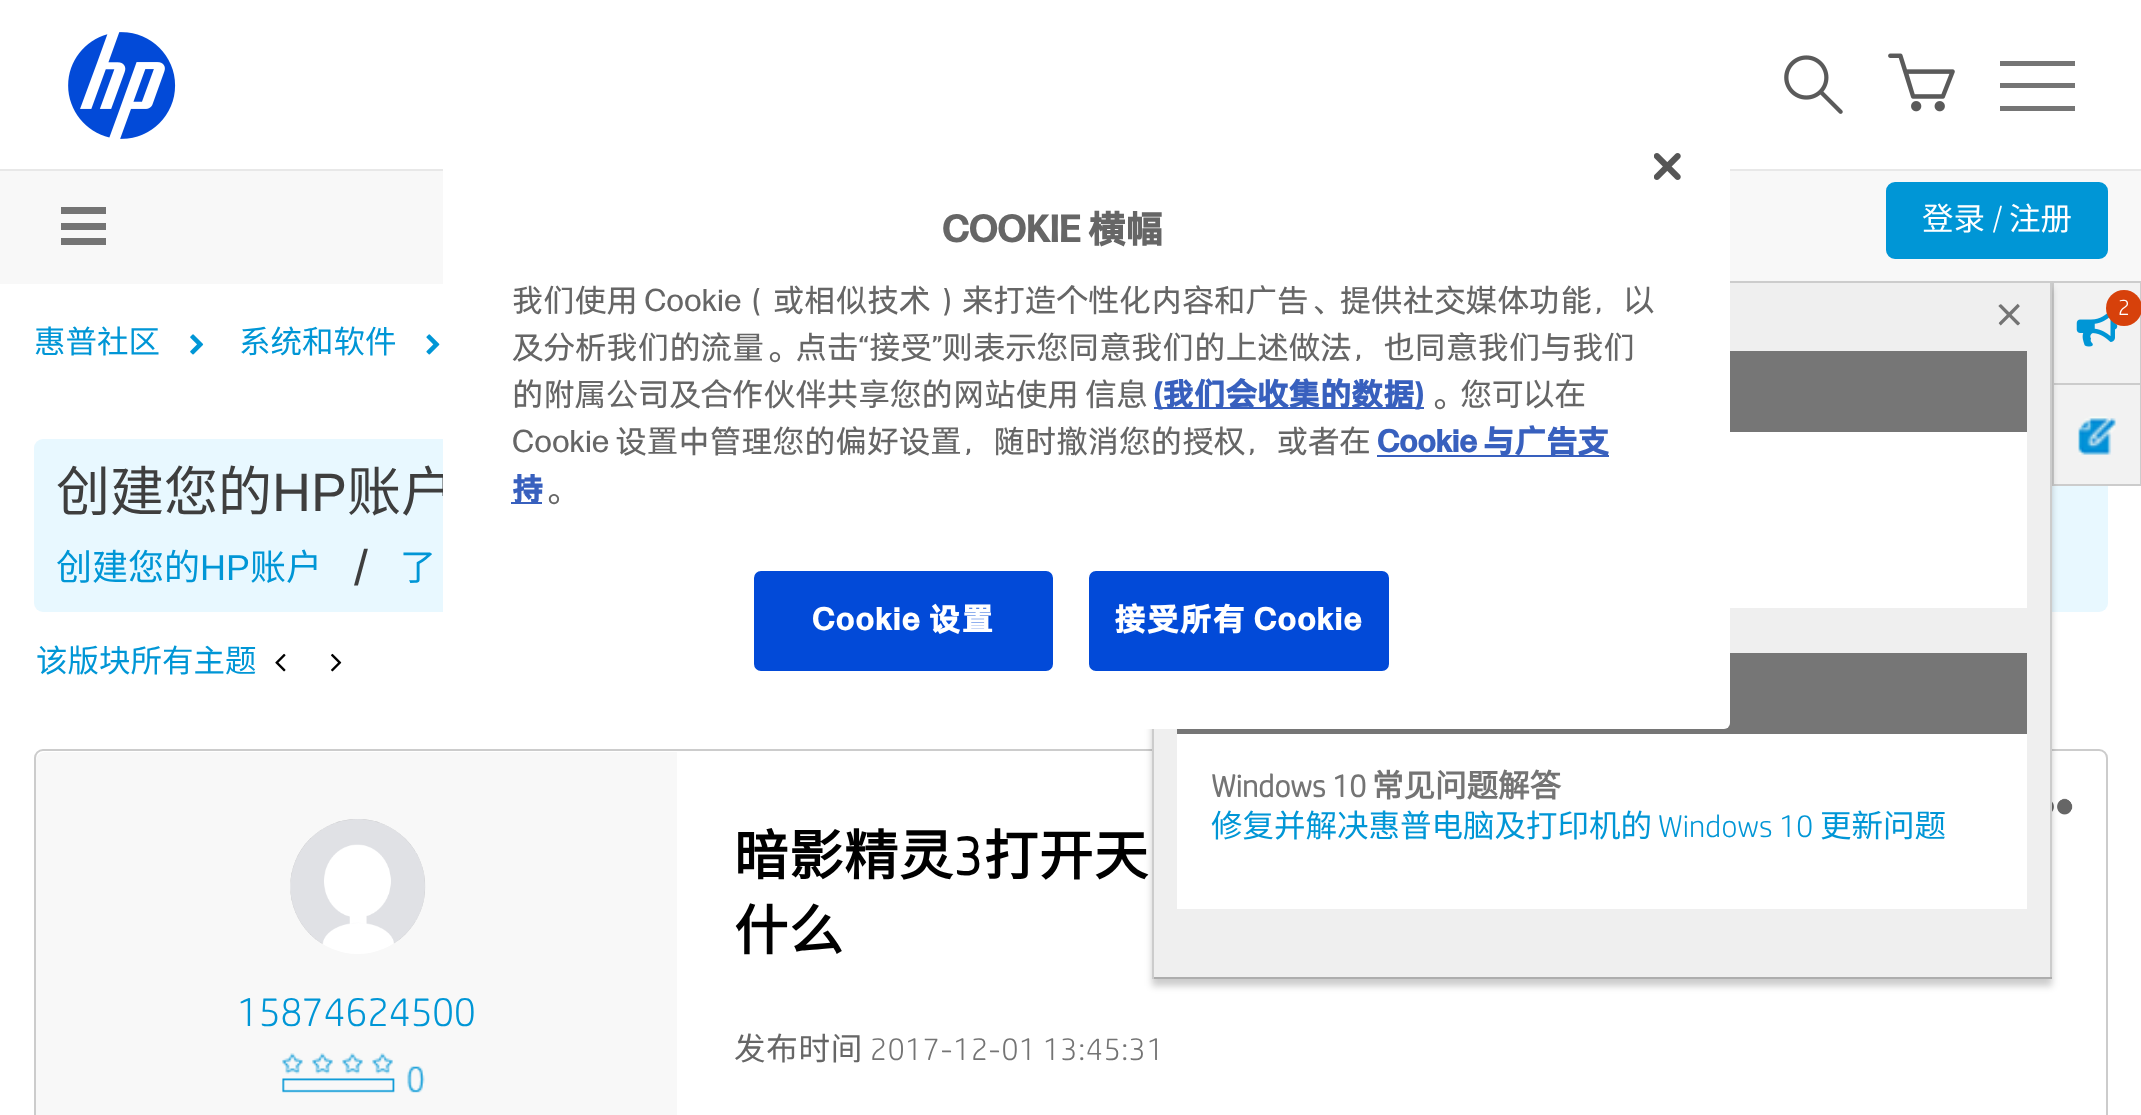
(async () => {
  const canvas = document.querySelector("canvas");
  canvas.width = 2141;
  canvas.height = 1115;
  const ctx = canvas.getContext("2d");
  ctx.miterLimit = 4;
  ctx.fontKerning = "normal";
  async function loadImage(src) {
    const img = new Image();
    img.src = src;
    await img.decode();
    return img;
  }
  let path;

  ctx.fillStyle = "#ffffff";
  ctx.fillRect(0, 0, 2141, 1115);
  ctx.fillStyle = "#e8e8e8";
  ctx.fillRect(0, 169, 2141, 2);
  ctx.drawImage(await loadImage("img/1.png"), 68, 32, 108, 107);
  ctx.drawImage(await loadImage("img/2.png"), 1784, 55, 59, 59);
  ctx.drawImage(await loadImage("img/3.png"), 1888, 53, 67, 59);
  for (const [x, y, w, h, color] of [
    [2000, 83, 75, 5, "#757575"],
    [2000, 61, 75, 5, "#757575"],
    [2000, 106, 75, 5, "#757575"],
  ]) {
    ctx.fillStyle = color;
    ctx.fillRect(x, y, w, h);
  }
  ctx.drawImage(await loadImage("img/4.png"), 190, 334, 14, 21);
  ctx.drawImage(await loadImage("img/5.png"), 426, 334, 14, 21);
  ctx.fillStyle = "#f8f8f8";
  ctx.fillRect(0, 171, 2141, 113);
  ctx.fillStyle = "#747474";
  path = new Path2D("M61 207H106V214H61ZM61 223H106V230H61ZM61 238H106V245H61Z");
  ctx.fill(path, "evenodd");
  ctx.fillStyle = "#0096d6";
  ctx.beginPath();
  ctx.roundRect(1887, 183, 220, 75, 8);
  ctx.fill();
  ctx.strokeStyle = "#0096d6";
  ctx.lineWidth = 2;
  ctx.stroke();
  ctx.fillStyle = "#e8f8ff";
  ctx.beginPath();
  ctx.roundRect(34, 439, 2074, 173, 9);
  ctx.fill();
  ctx.fillStyle = "#f2f2f2";
  ctx.fillRect(2054, 283, 86, 201);
  ctx.strokeStyle = "#cccccc";
  ctx.strokeRect(2053, 384, 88, 101);
  ctx.strokeRect(2053, 282, 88, 102);
  ctx.beginPath();
  ctx.roundRect(35, 750, 2072, 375, 8);
  ctx.stroke();
  ctx.drawImage(await loadImage("img/12.png"), 2052, 798, 21, 17);
  ctx.fillStyle = "rgba(0, 0, 0, 0.2)";
  ctx.filter = "blur(3.5px)";
  ctx.beginPath();
  ctx.rect(1152, 288, 900, 698);
  ctx.fill();
  ctx.filter = "none";
  for (const [x, y, w, h, color] of [
    [1154, 283, 896, 694, "#efefef"],
    [1730, 281, 322, 2, "#cccccc"],
    [2050, 281, 2, 698, "#cccccc"],
    [1152, 977, 900, 2, "#adadad"],
    [1152, 729, 2, 250, "#cccccc"],
    [1730, 351, 297, 81, "#767676"],
    [1730, 432, 297, 176, "#ffffff"],
    [1177, 653, 850, 81, "#767676"],
    [1177, 734, 850, 175, "#ffffff"],
  ]) {
    ctx.fillStyle = color;
    ctx.fillRect(x, y, w, h);
  }
  ctx.drawImage(await loadImage("img/6.png"), 2076, 313, 42, 34);
  ctx.fillStyle = "#d7410b";
  ctx.beginPath();
  ctx.arc(2124, 308, 18, 0, Math.PI * 2);
  ctx.fill();
  ctx.drawImage(await loadImage("img/7.png"), 2078, 416, 38, 39);
  ctx.drawImage(await loadImage("img/8.png"), 275, 653, 11, 19);
  ctx.drawImage(await loadImage("img/9.png"), 331, 653, 11, 19);
  ctx.fillStyle = "#f8f8f8";
  path = new Path2D("M45 752H677V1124H45C40 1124 36 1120 36 1115V761C36 756 40 752 45 752Z");
  ctx.fill(path);
  ctx.drawImage(await loadImage("img/10.png"), 290, 819, 136, 135);
  ctx.drawImage(await loadImage("img/11.png"), 282, 1053, 143, 40);
  ctx.font = "31.5px Noto Sans CJK SC";
  ctx.fillStyle = "#0096d6";
  ctx.fillText("惠普社区", 34, 353);
  ctx.fillText("系统和软件", 239, 353);
  ctx.fillStyle = "#ffffff";
  ctx.fillText("登录", 1922, 230);
  ctx.font = "300 31.5px 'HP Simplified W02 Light'";
  ctx.fillText("/", 1992, 230);
  ctx.font = "31.5px Noto Sans CJK SC";
  ctx.fillText("注册", 2009, 230);
  ctx.font = "300 68px 'HP Simplified W02 Light'";
  ctx.fillStyle = "#747474";
  ctx.fillText("×", 1991, 338);
  ctx.font = "bold 31.5px 'HP Simplified W02 Light'";
  ctx.fillText("Windows 10", 1211, 797);
  ctx.font = "bold 31.5px Noto Sans CJK SC";
  ctx.fillText("常见问题解答", 1372, 797);
  ctx.font = "31.5px Noto Sans CJK SC";
  ctx.fillStyle = "#0096d6";
  ctx.fillText("修复并解决惠普电脑及打印机的", 1211, 837);
  ctx.font = "300 31.5px 'HP Simplified W02 Light'";
  ctx.fillText("Windows 10", 1658, 837);
  ctx.font = "31.5px Noto Sans CJK SC";
  ctx.fillText("更新问题", 1820, 837);
  ctx.font = "300 22px 'HP Simplified W02 Light'";
  ctx.fillStyle = "#ffffff";
  ctx.fillText("2", 2118, 315);
  ctx.font = "54px Noto Sans CJK SC";
  ctx.fillStyle = "#3e3e3e";
  ctx.fillText("创建您的", 56, 511);
  ctx.font = "54px Liberation Sans";
  ctx.fillText("HP", 272, 511);
  ctx.font = "54px Noto Sans CJK SC";
  ctx.fillText("账户", 347, 511);
  ctx.font = "36px Noto Sans CJK SC";
  ctx.fillStyle = "#0096d6";
  ctx.fillText("创建您的", 56, 580);
  ctx.font = "36px Liberation Sans";
  ctx.fillText("HP", 200, 580);
  ctx.font = "36px Noto Sans CJK SC";
  ctx.fillText("账户", 250, 580);
  ctx.font = "50px Liberation Sans";
  ctx.fillStyle = "#3e3e3e";
  ctx.fillText("/", 354, 585);
  ctx.font = "36px Noto Sans CJK SC";
  ctx.fillStyle = "#0096d6";
  ctx.fillText("了", 400, 580);
  ctx.font = "31.5px Noto Sans CJK SC";
  ctx.fillText("该版块所有主题", 36, 672);
  ctx.font = "300 40.5px 'HP Simplified W02 Light'";
  ctx.fillText("15874624500", 237, 1026);
  ctx.letterSpacing = "1px";
  ctx.font = "bold 54px Noto Sans CJK SC";
  ctx.fillStyle = "#000000";
  ctx.fillText("暗影精灵", 734, 875);
  ctx.font = "bold 54px 'HP Simplified W02 Light'";
  ctx.fillText("3", 954, 875);
  ctx.font = "bold 54px Noto Sans CJK SC";
  ctx.fillText("打开天", 984, 875);
  ctx.fillText("什么", 734, 950);
  ctx.letterSpacing = "0.75px";
  ctx.font = "31.5px Noto Sans CJK SC";
  ctx.fillStyle = "#666666";
  ctx.fillText("发布时间", 734, 1060);
  ctx.font = "300 31.5px 'HP Simplified W02 Light'";
  ctx.fillStyle = "#747474";
  ctx.fillText("2017-12-01", 870, 1060);
  ctx.fillText("13:45:31", 1043, 1060);
  ctx.fillStyle = "#ffffff";
  ctx.beginPath();
  ctx.roundRect(443, 113, 1287, 616, 6);
  ctx.fill();
  ctx.drawImage(await loadImage("img/13.png"), 1654, 153, 27, 27);
  ctx.letterSpacing = "0px";
  ctx.font = "bold 37.75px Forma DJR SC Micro";
  ctx.fillStyle = "#666666";
  ctx.fillText("COOKIE 横幅", 942, 242);
  ctx.font = "31.5px Forma DJR SC Micro";
  for (const [text, x, y] of [
    ["我们使用 Cookie（或相似技术）来打造个性化内容和广告、提供社交媒体功能，以", 512, 311],
    ["及分析我们的流量。点击“接受”则表示您同意我们的上述做法，也同意我们与我们", 512, 358],
    ["的附属公司及合作伙伴共享您的网站使用 信息", 512, 405],
  ]) {
    ctx.fillText(text, x, y);
  }
  ctx.fillStyle = "#3860be";
  ctx.fillRect(1154, 407, 270, 2);
  ctx.font = "bold 31.5px Forma DJR SC Micro";
  ctx.fillText("(我们会收集的数据)", 1154, 405);
  ctx.font = "31.5px Forma DJR SC Micro";
  ctx.fillStyle = "#666666";
  ctx.fillText("。您可以在", 1429, 405);
  ctx.fillText("Cookie 设置中管理您的偏好设置，随时撤消您的授权，或者在", 512, 452);
  ctx.fillStyle = "#3860be";
  ctx.fillRect(1377, 455, 232, 2);
  ctx.font = "bold 31.5px Forma DJR SC Micro";
  ctx.fillText("Cookie 与广告支", 1377, 452);
  ctx.fillRect(511, 502, 31, 2);
  ctx.fillText("持", 512, 500);
  ctx.font = "31.5px Forma DJR SC Micro";
  ctx.fillStyle = "#666666";
  ctx.fillText("。", 543, 500);
  ctx.fillStyle = "#024ad8";
  ctx.beginPath();
  ctx.roundRect(753, 570, 301, 102, 8);
  ctx.fill();
  ctx.strokeStyle = "#ffffff";
  ctx.stroke();
  ctx.letterSpacing = "1.5px";
  ctx.font = "bold 31.5px Forma DJR SC Micro";
  ctx.fillStyle = "#ffffff";
  ctx.fillText("Cookie 设置", 812, 630);
  ctx.fillStyle = "#024ad8";
  ctx.beginPath();
  ctx.roundRect(1088, 570, 302, 102, 8);
  ctx.fill();
  ctx.stroke();
  ctx.fillStyle = "#ffffff";
  ctx.fillText("接受所有 Cookie", 1114, 630);
})();
